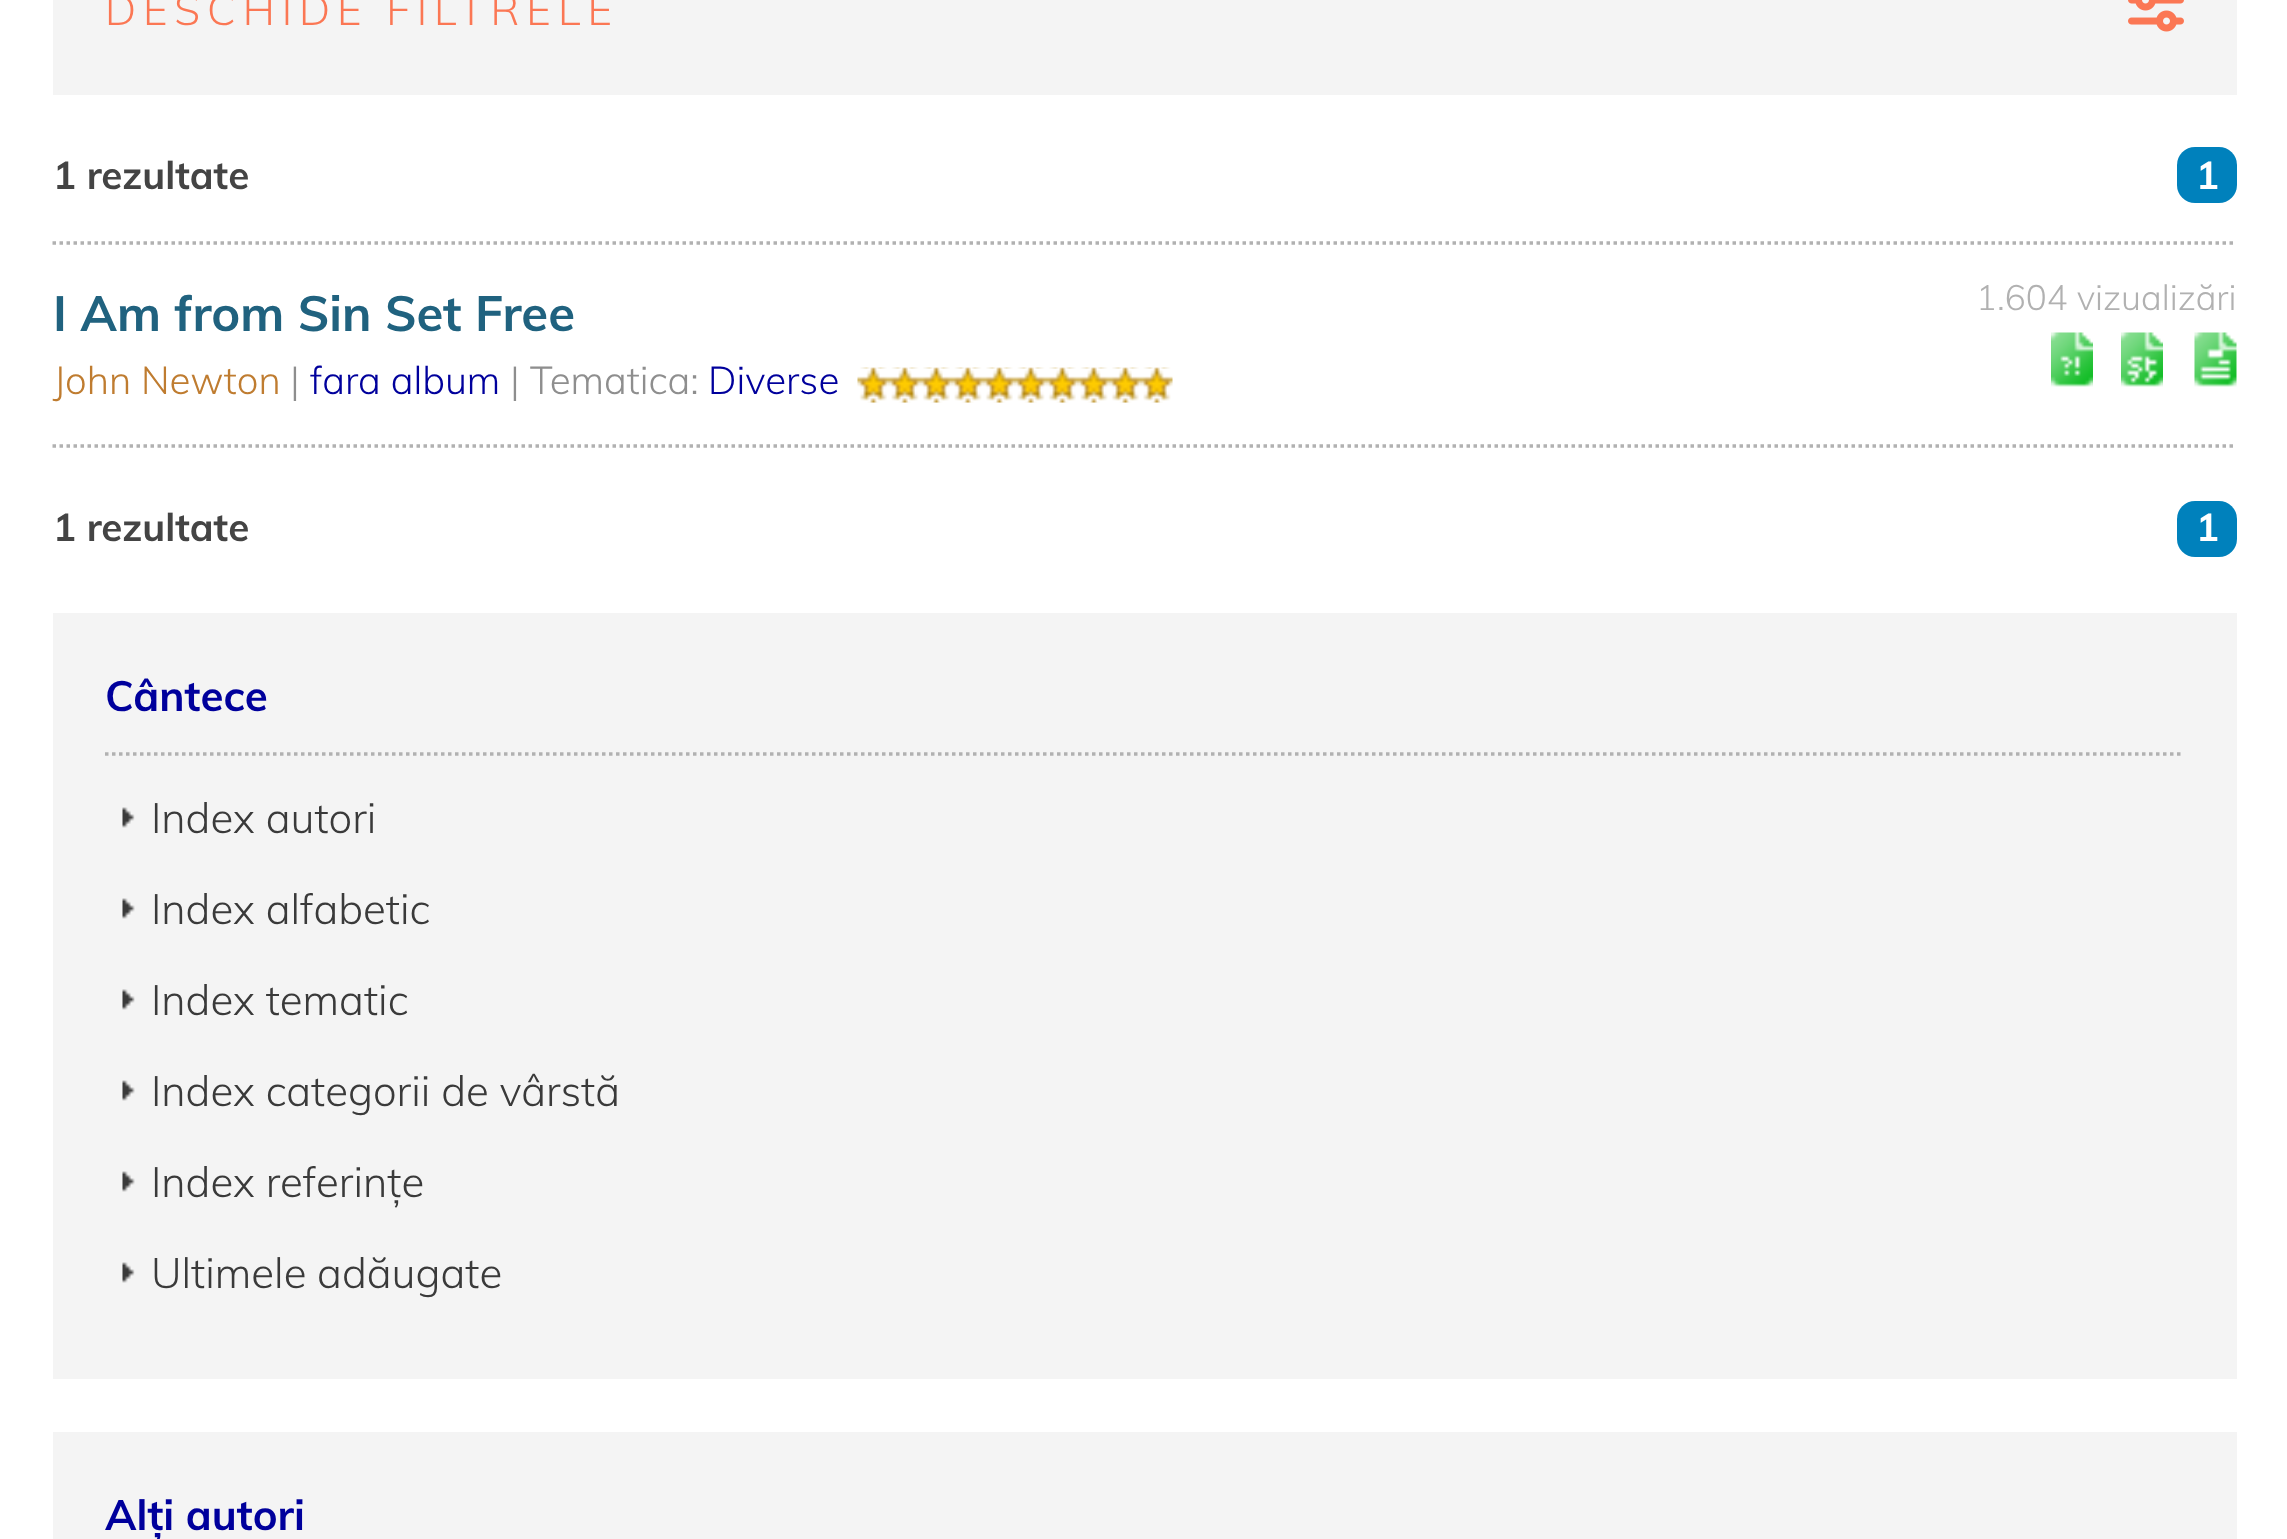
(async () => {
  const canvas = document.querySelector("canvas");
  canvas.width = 2287;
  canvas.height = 1539;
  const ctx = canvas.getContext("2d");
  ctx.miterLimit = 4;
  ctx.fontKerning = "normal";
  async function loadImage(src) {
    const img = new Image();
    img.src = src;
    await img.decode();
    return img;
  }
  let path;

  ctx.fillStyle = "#ffffff";
  ctx.fillRect(0, 0, 2287, 1539);
  ctx.fillStyle = "#f4f4f4";
  ctx.fillRect(53, 0, 2184, 95);
  ctx.drawImage(await loadImage("img/1.png"), 2128, 0, 56, 32);
  path = new Path2D("M52.5 243H2236.5");
  ctx.strokeStyle = "#b1b1b1";
  ctx.lineWidth = 3.5;
  ctx.setLineDash([3.5, 3.5]);
  ctx.stroke(path);
  ctx.fillStyle = "#0081bc";
  ctx.beginPath();
  ctx.roundRect(2177, 147, 60, 56, 18);
  ctx.fill();
  path = new Path2D("M52.5 446H2236.5");
  ctx.stroke(path);
  ctx.drawImage(await loadImage("img/2.png"), 857, 367, 316, 36);
  ctx.drawImage(await loadImage("img/3.png"), 2051, 332, 42, 55);
  ctx.drawImage(await loadImage("img/4.png"), 2121, 332, 42, 55);
  ctx.drawImage(await loadImage("img/5.png"), 2194, 332, 43, 55);
  ctx.beginPath();
  ctx.roundRect(2177, 501, 60, 56, 18);
  ctx.fill();
  ctx.fillStyle = "#f4f4f4";
  ctx.fillRect(53, 613, 2184, 766);
  path = new Path2D("M105 754H2184");
  ctx.stroke(path);
  ctx.drawImage(await loadImage("img/6.png"), 122, 807, 13, 21);
  ctx.drawImage(await loadImage("img/7.png"), 122, 898, 13, 21);
  ctx.drawImage(await loadImage("img/8.png"), 122, 989, 13, 21);
  ctx.drawImage(await loadImage("img/9.png"), 122, 1080, 13, 21);
  ctx.drawImage(await loadImage("img/9.png"), 122, 1171, 13, 21);
  ctx.drawImage(await loadImage("img/6.png"), 122, 1262, 13, 21);
  ctx.fillRect(53, 1432, 2184, 107);
  ctx.letterSpacing = "7px";
  ctx.font = "300 42px Muli";
  ctx.fillStyle = "#fb7754";
  ctx.fillText("DESCHIDE FILTRELE", 105, 25);
  ctx.letterSpacing = "0px";
  ctx.font = "bold 38.5px Muli";
  ctx.fillStyle = "#444444";
  ctx.fillText("1 rezultate", 53, 189);
  ctx.fillStyle = "#ffffff";
  ctx.fillText("1", 2196, 189);
  ctx.font = "bold 49px Muli";
  ctx.fillStyle = "#20627f";
  ctx.fillText("I Am from Sin Set Free", 53, 331);
  ctx.font = "300 38.5px Muli";
  ctx.fillStyle = "#bf7c30";
  ctx.fillText("John Newton", 53, 394);
  ctx.fillStyle = "#8e8e8e";
  ctx.fillText("|", 290, 394);
  ctx.fillStyle = "#00009c";
  ctx.fillText("fara album", 310, 394);
  ctx.fillStyle = "#8e8e8e";
  ctx.fillText("| Tematica:", 510, 394);
  ctx.fillStyle = "#00009c";
  ctx.fillText("Diverse", 708, 394);
  ctx.font = "300 35px Muli";
  ctx.fillStyle = "#b1b1b1";
  ctx.fillText("1.604 vizualizări", 1976, 310);
  ctx.font = "bold 38.5px Muli";
  ctx.fillStyle = "#444444";
  ctx.fillText("1 rezultate", 53, 541);
  ctx.fillStyle = "#ffffff";
  ctx.fillText("1", 2196, 541);
  ctx.font = "bold 42px Muli";
  ctx.fillStyle = "#00009c";
  ctx.fillText("Cântece", 105, 711);
  ctx.font = "300 42px Muli";
  ctx.fillStyle = "#3a3a3a";
  for (const [text, x, y] of [
    ["Index autori", 151, 833],
    ["Index alfabetic", 151, 924],
    ["Index tematic", 151, 1015],
    ["Index categorii de vârstă", 151, 1106],
    ["Index referințe", 151, 1197],
    ["Ultimele adăugate", 151, 1288],
  ]) {
    ctx.fillText(text, x, y);
  }
  ctx.font = "bold 42px Muli";
  ctx.fillStyle = "#00009c";
  ctx.fillText("Alți autori", 105, 1530);
})();
